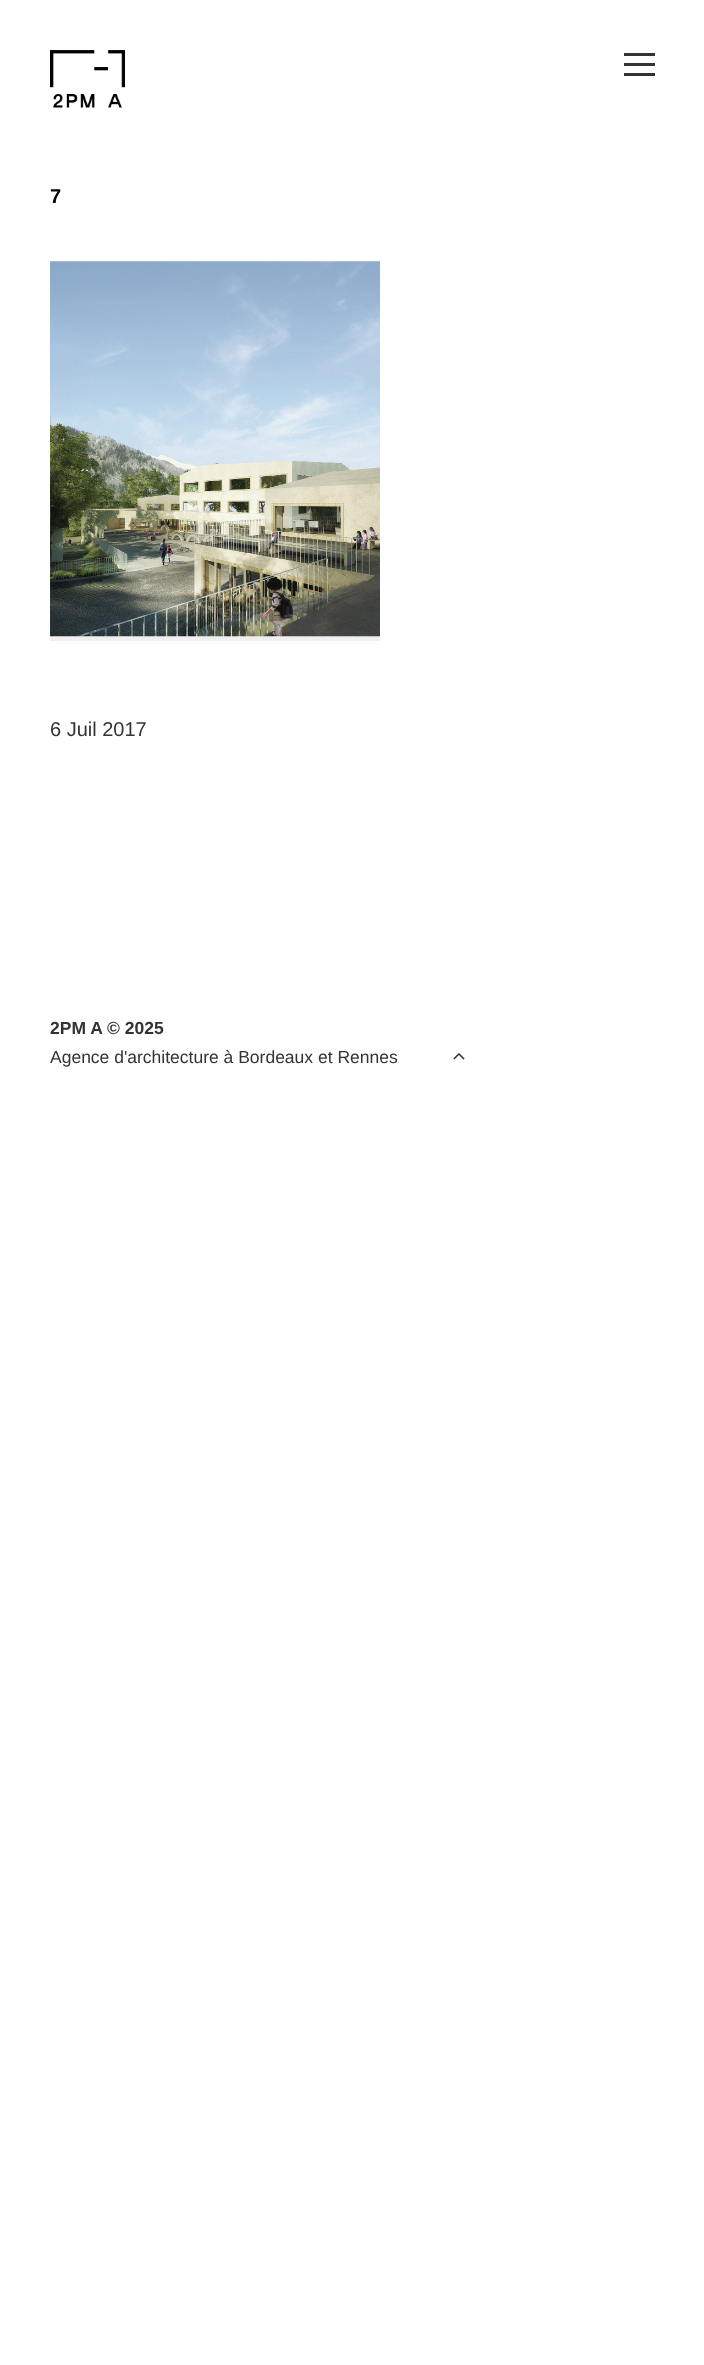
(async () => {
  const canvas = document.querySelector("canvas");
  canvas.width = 704;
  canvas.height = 2365;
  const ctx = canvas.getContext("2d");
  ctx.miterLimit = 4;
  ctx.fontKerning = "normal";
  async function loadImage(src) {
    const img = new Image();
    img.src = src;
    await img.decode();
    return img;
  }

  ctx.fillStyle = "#ffffff";
  ctx.fillRect(0, 0, 704, 2365);
  ctx.drawImage(await loadImage("img/1.png"), 50, 50, 75, 58);
  for (const [x, y, w, h, color] of [
    [624, 63, 31, 3, "#333333"],
    [624, 53, 31, 3, "#333333"],
    [624, 73, 31, 3, "#333333"],
    [50, 636, 330, 5, "#f0f0f0"],
  ]) {
    ctx.fillStyle = color;
    ctx.fillRect(x, y, w, h);
  }
  ctx.drawImage(await loadImage("img/2.png"), 50, 261, 330, 376);
  ctx.drawImage(await loadImage("img/3.png"), 453, 1053, 12, 7);
  ctx.font = "bold 20px Liberation Sans";
  ctx.fillStyle = "#000000";
  ctx.fillText("7", 50, 203);
  ctx.font = "20px Liberation Sans";
  ctx.fillStyle = "#333333";
  ctx.fillText("6 Juil 2017", 50, 736);
  ctx.font = "bold 17.5px Liberation Sans";
  ctx.fillText("2PM A © 2025", 50, 1034);
  ctx.font = "17.5px Liberation Sans";
  ctx.fillText("Agence d'architecture à Bordeaux et Rennes", 50, 1063);
})();
